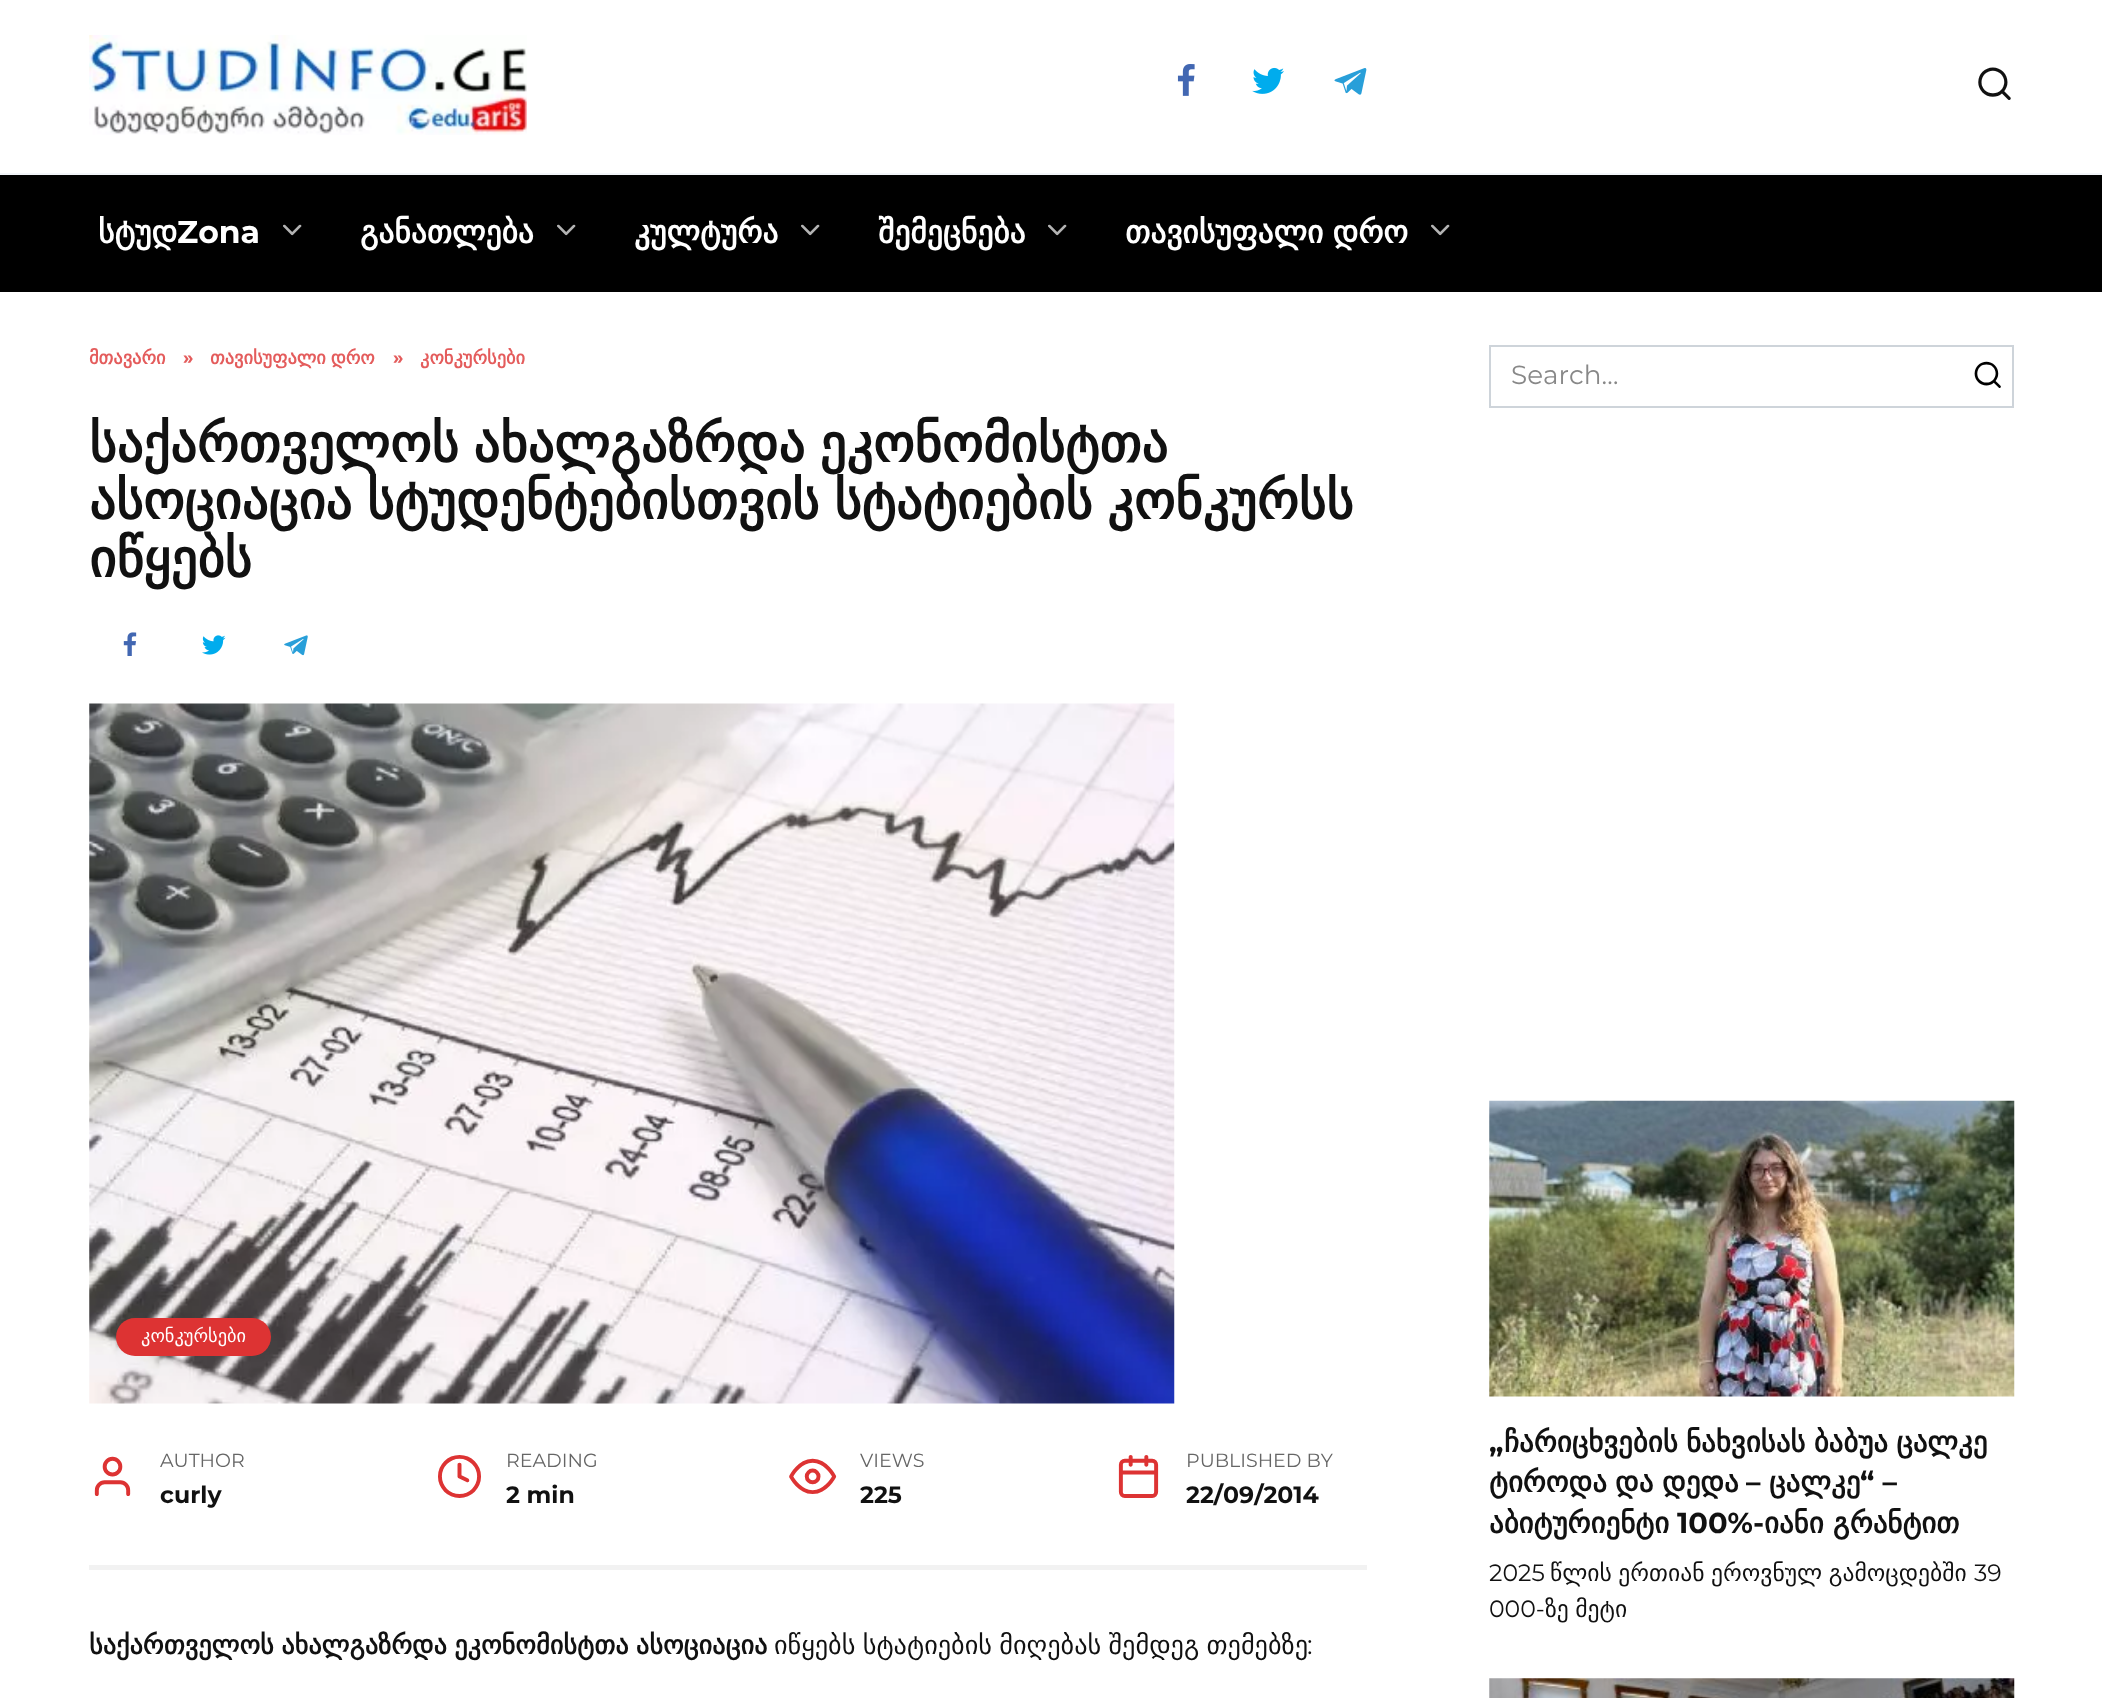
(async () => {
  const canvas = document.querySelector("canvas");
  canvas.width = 2102;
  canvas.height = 1698;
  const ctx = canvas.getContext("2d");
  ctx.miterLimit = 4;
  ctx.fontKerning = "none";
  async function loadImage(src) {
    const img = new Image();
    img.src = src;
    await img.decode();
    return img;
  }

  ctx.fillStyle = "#ffffff";
  ctx.fillRect(0, 0, 2102, 1698);
  ctx.fillStyle = "#f2f5f9";
  ctx.fillRect(0, 173, 2102, 2);
  ctx.drawImage(await loadImage("img/1.png"), 89, 35, 438, 100);
  ctx.drawImage(await loadImage("img/2.png"), 1177, 64, 18, 32);
  ctx.drawImage(await loadImage("img/3.png"), 1252, 67, 32, 27);
  ctx.drawImage(await loadImage("img/4.png"), 1334, 68, 33, 27);
  ctx.fillStyle = "#000000";
  ctx.fillRect(0, 175, 2102, 117);
  ctx.drawImage(await loadImage("img/5.png"), 123, 632, 14, 24);
  ctx.drawImage(await loadImage("img/6.png"), 202, 635, 24, 20);
  ctx.drawImage(await loadImage("img/7.png"), 284, 635, 24, 21);
  ctx.drawImage(await loadImage("img/8.png"), 89, 703, 1086, 701);
  ctx.fillStyle = "#dd3333";
  ctx.beginPath();
  ctx.roundRect(116, 1318, 155, 38, 19);
  ctx.fill();
  ctx.fillStyle = "#f2f2f2";
  ctx.fillRect(89, 1565, 1278, 5);
  ctx.strokeStyle = "#ced4da";
  ctx.lineWidth = 2;
  ctx.strokeRect(1490, 346, 523, 61);
  ctx.drawImage(await loadImage("img/9.png"), 1489, 1100, 526, 297);
  ctx.drawImage(await loadImage("img/10.png"), 1489, 1678, 526, 20);
  ctx.font = "39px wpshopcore";
  ctx.fillStyle = "#111111";
  ctx.fillText("🔍", 1975, 100);
  ctx.font = "bold 31.5px DejaVu Sans";
  ctx.fillStyle = "#ffffff";
  ctx.fillText("სტუდ", 98, 243);
  ctx.font = "bold 31.5px Montserrat";
  ctx.fillText("Zona", 177, 243);
  ctx.font = "31.5px wpshopcore";
  ctx.fillStyle = "#b3b3b3";
  ctx.fillText("﹀", 276, 243);
  ctx.font = "bold 31.5px DejaVu Sans";
  ctx.fillStyle = "#ffffff";
  ctx.fillText("განათლება", 360, 243);
  ctx.font = "31.5px wpshopcore";
  ctx.fillStyle = "#b3b3b3";
  ctx.fillText("﹀", 550, 243);
  ctx.font = "bold 31.5px DejaVu Sans";
  ctx.fillStyle = "#ffffff";
  ctx.fillText("კულტურა", 634, 243);
  ctx.font = "31.5px wpshopcore";
  ctx.fillStyle = "#b3b3b3";
  ctx.fillText("﹀", 794, 243);
  ctx.font = "bold 31.5px DejaVu Sans";
  ctx.fillStyle = "#ffffff";
  ctx.fillText("შემეცნება", 878, 243);
  ctx.font = "31.5px wpshopcore";
  ctx.fillStyle = "#b3b3b3";
  ctx.fillText("﹀", 1041, 243);
  ctx.wordSpacing = "-1px";
  ctx.font = "bold 31.5px DejaVu Sans";
  ctx.fillStyle = "#ffffff";
  ctx.fillText("თავისუფალი დრო", 1125, 243);
  ctx.wordSpacing = "0px";
  ctx.font = "31.5px wpshopcore";
  ctx.fillStyle = "#b3b3b3";
  ctx.fillText("﹀", 1424, 243);
  ctx.font = "bold 18.4px DejaVu Sans";
  ctx.fillStyle = "#e45c5c";
  ctx.fillText("მთავარი", 89, 364);
  ctx.font = "bold 18.4px Montserrat";
  ctx.fillText("»", 183, 364);
  ctx.wordSpacing = "-1px";
  ctx.font = "bold 18.4px DejaVu Sans";
  ctx.fillText("თავისუფალი დრო", 210, 364);
  ctx.wordSpacing = "0px";
  ctx.font = "bold 18.4px Montserrat";
  ctx.fillText("»", 393, 364);
  ctx.font = "bold 18.4px DejaVu Sans";
  ctx.fillText("კონკურსები", 420, 364);
  ctx.wordSpacing = "-2px";
  ctx.font = "bold 52.5px DejaVu Sans";
  ctx.fillStyle = "#111111";
  ctx.fillText("საქართველოს ახალგაზრდა ეკონომისტთა", 89, 462);
  ctx.fillText("ასოციაცია სტუდენტებისთვის სტატიების კონკურსს", 89, 519);
  ctx.wordSpacing = "0px";
  ctx.fillText("იწყებს", 89, 577);
  ctx.font = "18.4px DejaVu Sans";
  ctx.fillStyle = "#ffffff";
  ctx.fillText("კონკურსები", 141, 1342);
  ctx.font = "47px wpshopcore";
  ctx.fillStyle = "#dd3333";
  ctx.fillText("👤", 89, 1496);
  ctx.font = "19px Montserrat";
  ctx.fillStyle = "#666666";
  ctx.fillText("AUTHOR", 160, 1467);
  ctx.font = "bold 23.6px Montserrat";
  ctx.fillStyle = "#111111";
  ctx.fillText("curly", 160, 1503);
  ctx.font = "47px wpshopcore";
  ctx.fillStyle = "#dd3333";
  ctx.fillText("🕒", 436, 1496);
  ctx.font = "19px Montserrat";
  ctx.fillStyle = "#666666";
  ctx.fillText("READING", 506, 1467);
  ctx.font = "bold 23.6px Montserrat";
  ctx.fillStyle = "#111111";
  ctx.fillText("2 min", 506, 1503);
  ctx.font = "47px wpshopcore";
  ctx.fillStyle = "#dd3333";
  ctx.fillText("👀", 789, 1496);
  ctx.font = "19px Montserrat";
  ctx.fillStyle = "#666666";
  ctx.fillText("VIEWS", 860, 1467);
  ctx.font = "bold 23.6px Montserrat";
  ctx.fillStyle = "#111111";
  ctx.fillText("225", 860, 1503);
  ctx.font = "47px wpshopcore";
  ctx.fillStyle = "#dd3333";
  ctx.fillText("📅", 1115, 1496);
  ctx.font = "19px Montserrat";
  ctx.fillStyle = "#666666";
  ctx.fillText("PUBLISHED BY", 1186, 1467);
  ctx.font = "bold 23.6px Montserrat";
  ctx.fillStyle = "#111111";
  ctx.fillText("22/09/2014", 1186, 1503);
  ctx.wordSpacing = "-1px";
  ctx.font = "bold 26.25px DejaVu Sans";
  ctx.fillText("საქართველოს ახალგაზრდა ეკონომისტთა ასოციაცია", 89, 1654);
  ctx.font = "26.25px DejaVu Sans";
  ctx.fillText("იწყებს სტატიების მიღებას შემდეგ თემებზე", 774, 1654);
  ctx.wordSpacing = "0px";
  ctx.font = "26.25px Montserrat";
  ctx.fillText(":", 1307, 1654);
  ctx.fillStyle = "#888888";
  ctx.fillText("Search…", 1511, 384);
  ctx.font = "31.5px wpshopcore";
  ctx.fillStyle = "#000000";
  ctx.fillText("🔍", 1972, 388);
  ctx.font = "bold 28.9px Montserrat";
  ctx.fillStyle = "#111111";
  ctx.fillText("„", 1489, 1452);
  ctx.wordSpacing = "-1px";
  ctx.font = "bold 28.9px DejaVu Sans";
  ctx.fillText("ჩარიცხვების ნახვისას ბაბუა ცალკე", 1504, 1452);
  ctx.wordSpacing = "0px";
  for (const [text, x, y] of [
    ["ტიროდა", 1489, 1492],
    ["და", 1615, 1492],
    ["დედა", 1662, 1492],
  ]) {
    ctx.fillText(text, x, y);
  }
  ctx.font = "bold 28.9px Montserrat";
  ctx.fillText("–", 1746, 1492);
  ctx.font = "bold 28.9px DejaVu Sans";
  ctx.fillText("ცალკე", 1769, 1492);
  ctx.font = "bold 28.9px Montserrat";
  ctx.fillText("“ –", 1860, 1492);
  ctx.font = "bold 28.9px DejaVu Sans";
  ctx.fillText("აბიტურიენტი", 1489, 1533);
  ctx.font = "bold 28.9px Montserrat";
  ctx.fillText("100%-", 1677, 1533);
  ctx.font = "bold 28.9px DejaVu Sans";
  ctx.fillText("იანი გრანტით", 1764, 1533);
  ctx.font = "23.6px Montserrat";
  ctx.fillText("2025", 1489, 1581);
  ctx.wordSpacing = "-1px";
  ctx.font = "23.6px DejaVu Sans";
  ctx.fillText("წლის ერთიან ეროვნულ გამოცდებში", 1550, 1581);
  ctx.wordSpacing = "0px";
  ctx.font = "23.6px Montserrat";
  ctx.fillText("39", 1974, 1581);
  ctx.fillText("000-", 1489, 1617);
  ctx.wordSpacing = "-1px";
  ctx.font = "23.6px DejaVu Sans";
  ctx.fillText("ზე მეტი", 1545, 1617);
})();
